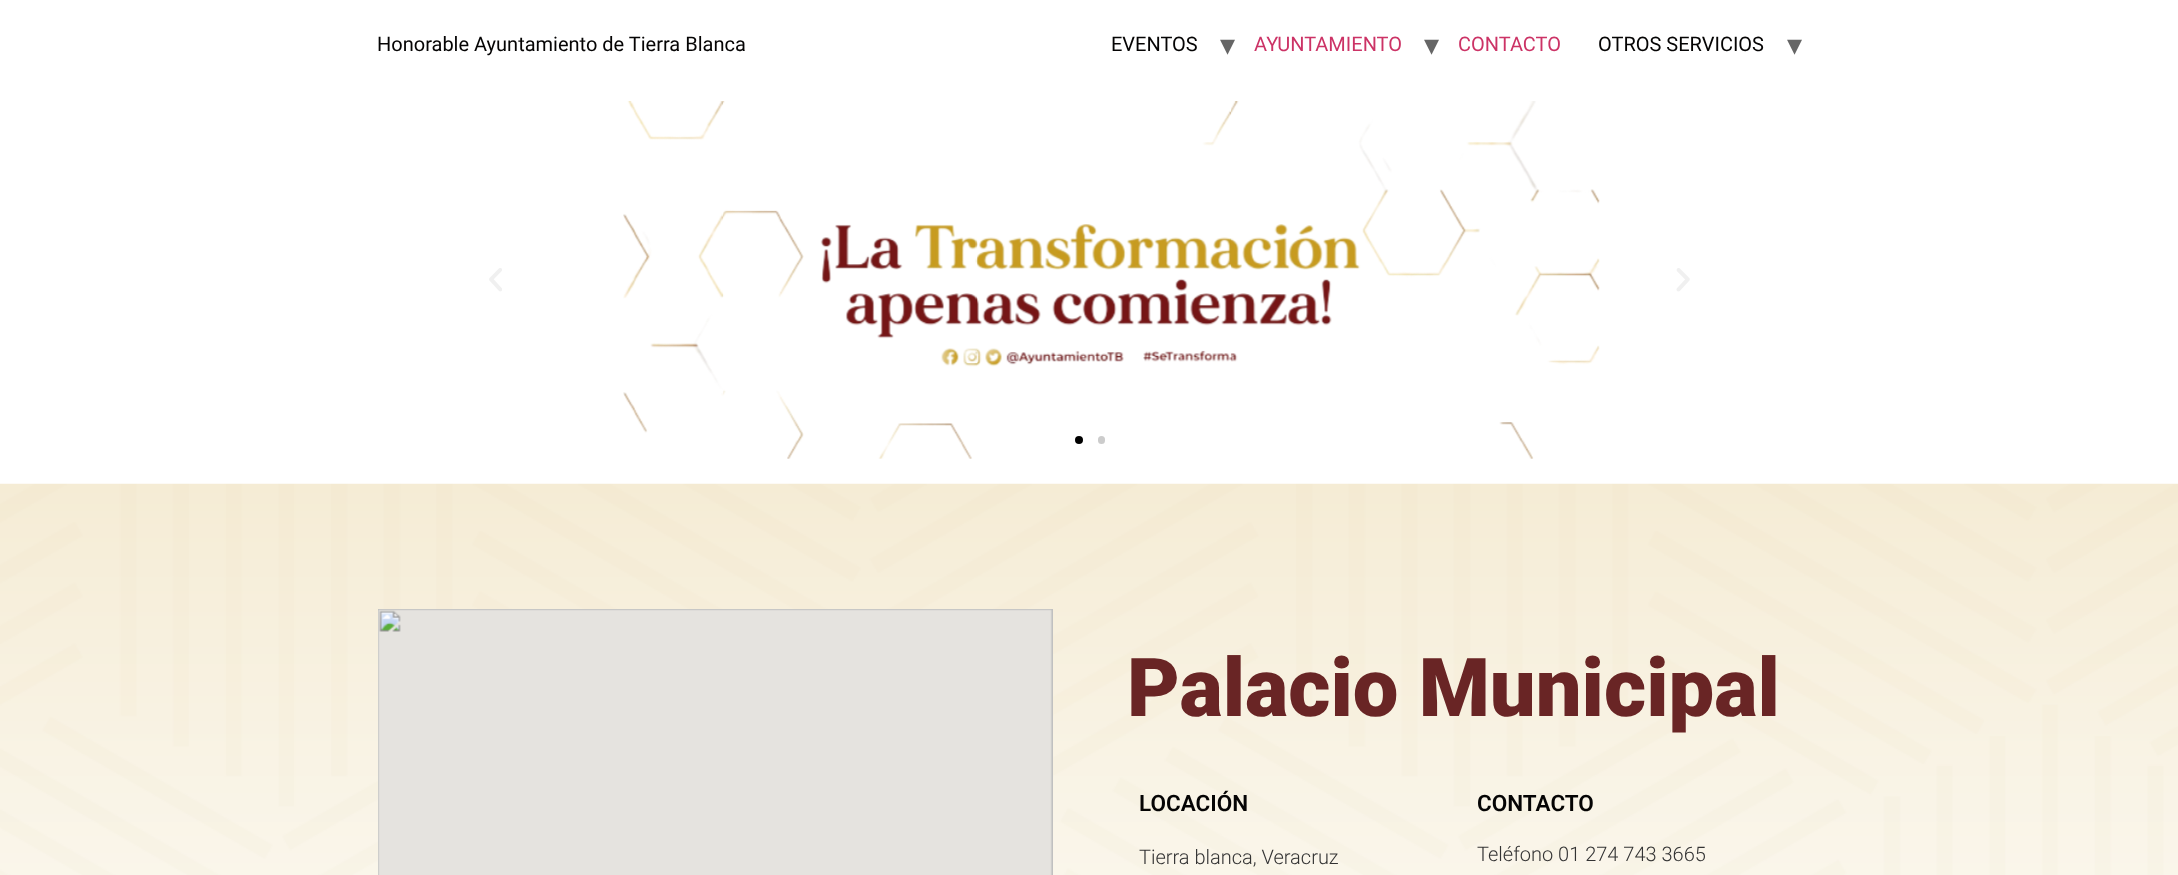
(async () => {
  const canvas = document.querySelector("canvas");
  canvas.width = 2178;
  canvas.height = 875;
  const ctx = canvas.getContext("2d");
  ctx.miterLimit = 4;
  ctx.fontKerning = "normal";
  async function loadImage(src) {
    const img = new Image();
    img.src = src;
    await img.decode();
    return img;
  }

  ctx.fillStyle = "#ffffff";
  ctx.fillRect(0, 0, 2178, 875);
  ctx.drawImage(await loadImage("img/1.png"), 489, 268, 13, 24);
  ctx.drawImage(await loadImage("img/2.png"), 623, 101, 977, 358);
  ctx.drawImage(await loadImage("img/3.png"), 1676, 268, 14, 24);
  ctx.fillStyle = "#000000";
  ctx.beginPath();
  ctx.arc(1079, 440, 4, 0, Math.PI * 2);
  ctx.fill();
  ctx.fillStyle = "#cccccc";
  ctx.beginPath();
  ctx.roundRect(1098, 436, 7, 8, 3.5);
  ctx.fill();
  ctx.drawImage(await loadImage("img/4.png"), 0, 483, 2178, 392);
  ctx.drawImage(await loadImage("img/5.png"), 378, 609, 675, 266);
  ctx.font = "20px Roboto";
  ctx.fillStyle = "#050404";
  ctx.fillText("Honorable Ayuntamiento de Tierra Blanca", 377, 51);
  ctx.fillText("EVENTOS", 1111, 51);
  ctx.font = "30px DejaVu Sans";
  ctx.fillStyle = "#666666";
  ctx.fillText("▾", 1220, 55);
  ctx.font = "20px Roboto";
  ctx.fillStyle = "#cc3366";
  ctx.fillText("AYUNTAMIENTO", 1254, 51);
  ctx.font = "30px DejaVu Sans";
  ctx.fillStyle = "#666666";
  ctx.fillText("▾", 1424, 55);
  ctx.font = "20px Roboto";
  ctx.fillStyle = "#cc3366";
  ctx.fillText("CONTACTO", 1458, 51);
  ctx.fillStyle = "#050404";
  ctx.fillText("OTROS SERVICIOS", 1598, 51);
  ctx.font = "30px DejaVu Sans";
  ctx.fillStyle = "#666666";
  ctx.fillText("▾", 1787, 55);
  ctx.font = "900 81.25px Roboto";
  ctx.fillStyle = "#692525";
  ctx.fillText("Palacio Municipal", 1127, 716);
  ctx.font = "600 22.5px Roboto";
  ctx.fillStyle = "#050404";
  ctx.fillText("LOCACIÓN", 1139, 811);
  ctx.font = "300 20px Roboto";
  ctx.fillStyle = "#333333";
  ctx.fillText("Tierra blanca, Veracruz", 1139, 864);
  ctx.font = "600 22.5px Roboto";
  ctx.fillStyle = "#050404";
  ctx.fillText("CONTACTO", 1477, 811);
  ctx.font = "300 20px Roboto";
  ctx.fillStyle = "#333333";
  ctx.fillText("Teléfono 01 274 743 3665", 1477, 861);
})();
